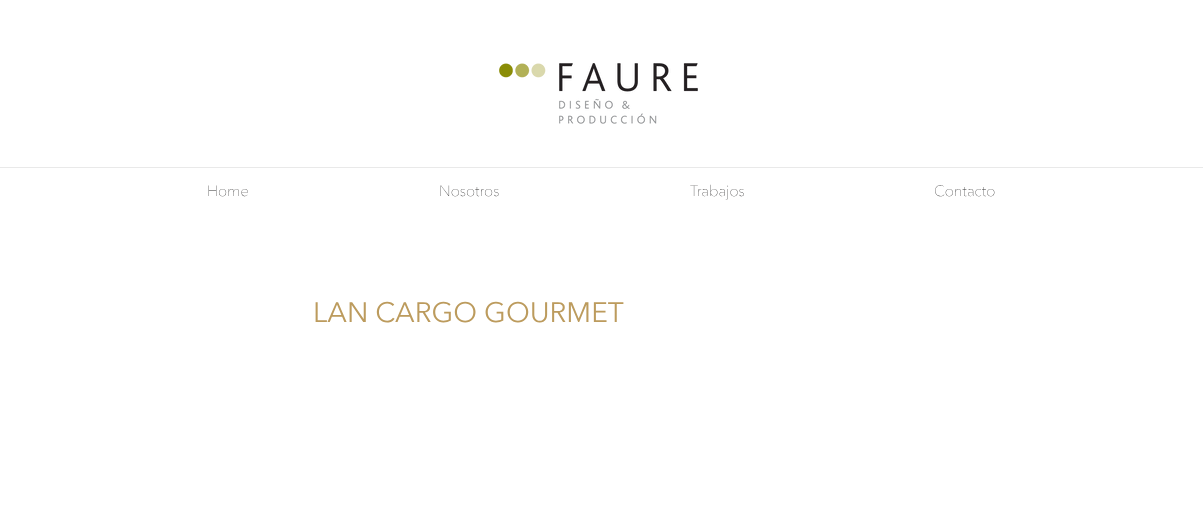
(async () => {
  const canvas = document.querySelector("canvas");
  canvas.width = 1203;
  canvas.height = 526;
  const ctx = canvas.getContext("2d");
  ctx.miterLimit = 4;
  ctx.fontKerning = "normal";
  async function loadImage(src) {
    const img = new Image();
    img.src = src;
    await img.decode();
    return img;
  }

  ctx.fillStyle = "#ffffff";
  ctx.fillRect(0, 0, 1203, 526);
  ctx.drawImage(await loadImage("img/1.png"), 499, 63, 199, 61);
  ctx.fillStyle = "#e9e9e9";
  ctx.fillRect(0, 167, 1203, 1);
  ctx.font = "200 15px Avenir Next";
  ctx.fillStyle = "#2f2e2e";
  for (const [text, x, y] of [
    ["Home", 207, 196],
    ["Nosotros", 439, 196],
    ["Trabajos", 690, 196],
    ["Contacto", 934, 196],
  ]) {
    ctx.fillText(text, x, y);
  }
  ctx.font = "28px Avenir Next";
  ctx.fillStyle = "#bc9b5d";
  ctx.fillText("LAN CARGO GOURMET", 313, 322);
})();
